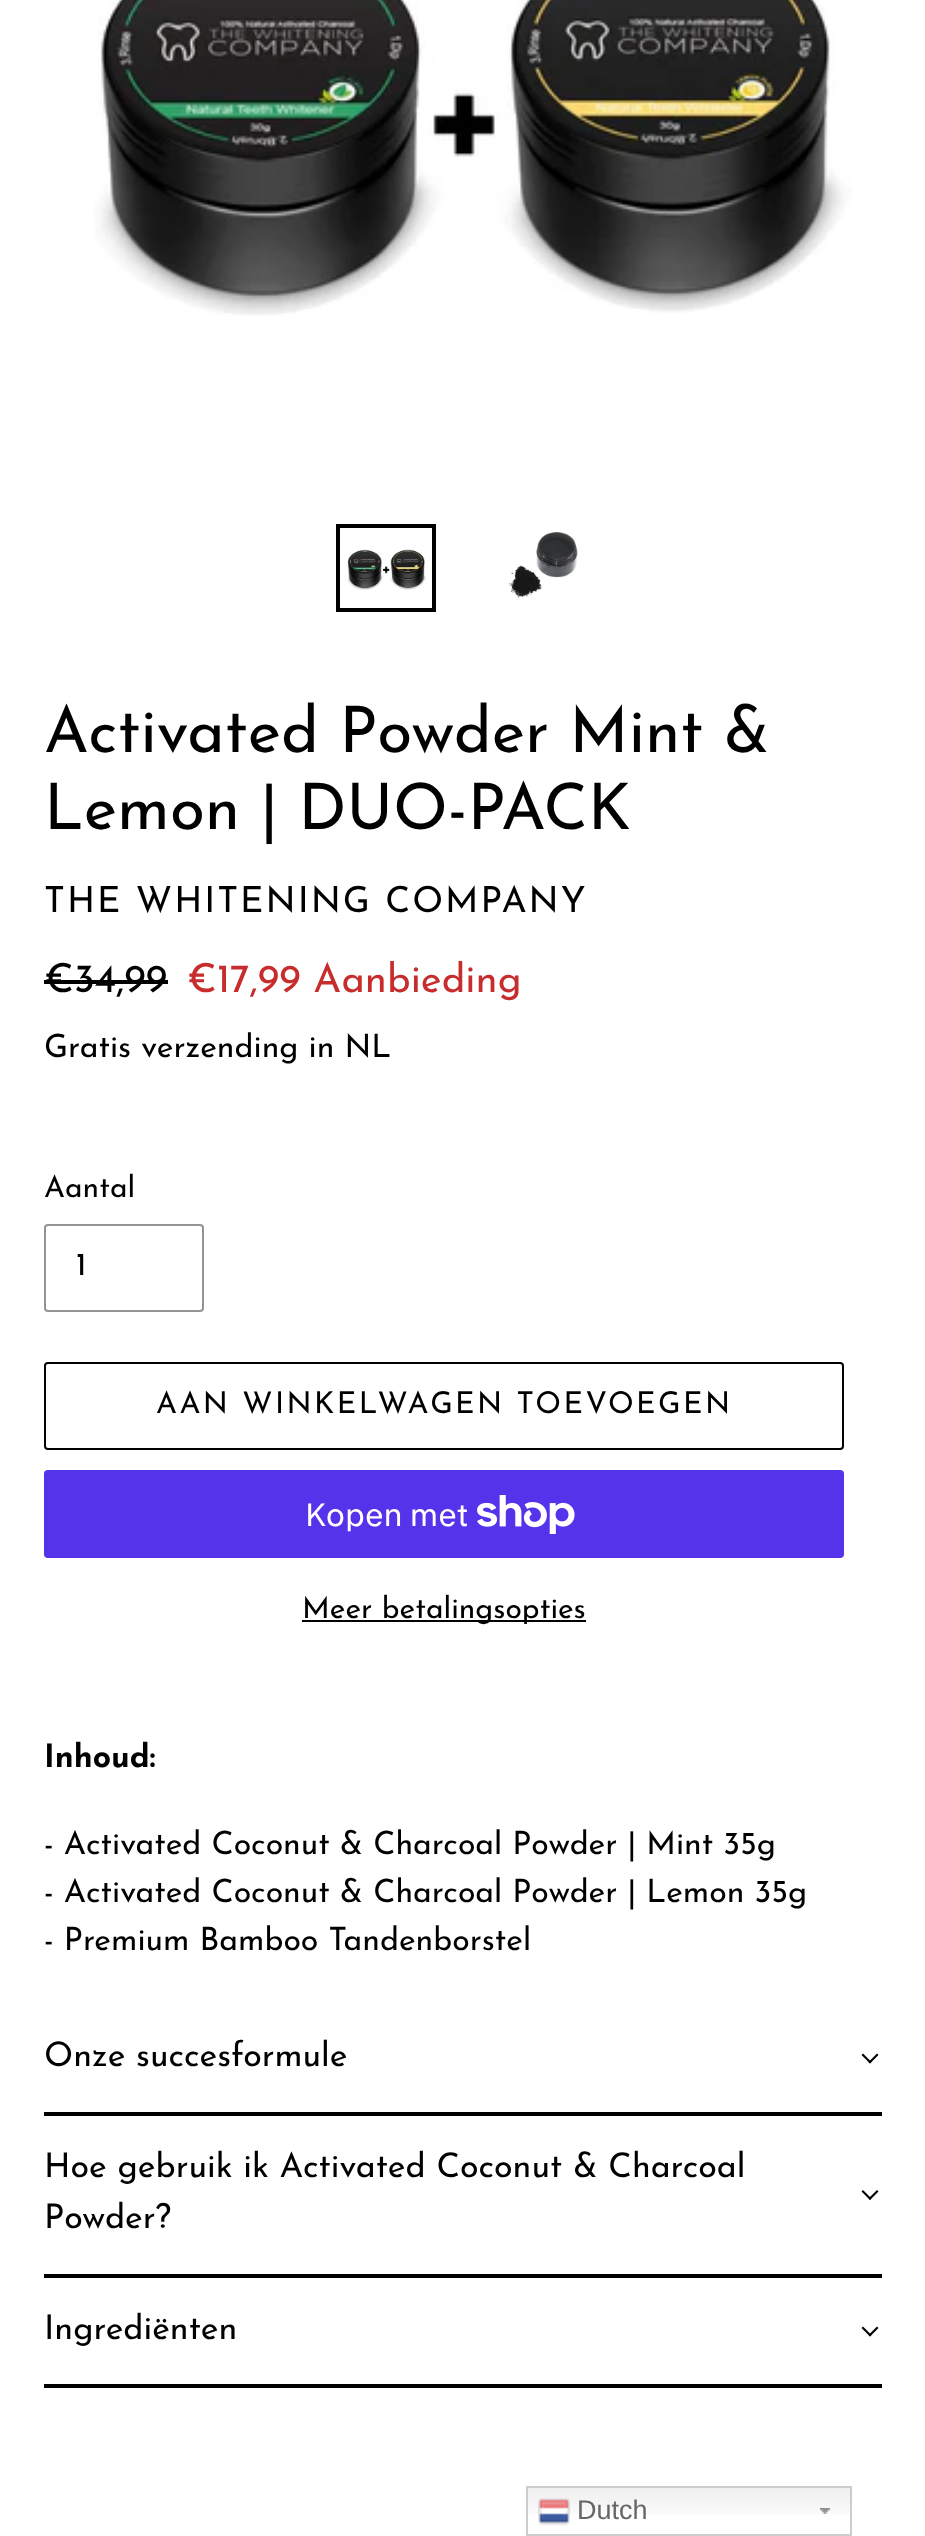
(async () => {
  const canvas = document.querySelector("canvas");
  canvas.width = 925;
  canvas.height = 2536;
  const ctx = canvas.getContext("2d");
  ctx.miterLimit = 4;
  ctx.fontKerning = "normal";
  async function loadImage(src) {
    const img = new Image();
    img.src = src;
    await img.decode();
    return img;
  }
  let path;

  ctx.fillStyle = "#ffffff";
  ctx.fillRect(0, 0, 925, 2536);
  ctx.drawImage(await loadImage("img/1.png"), 94, 0, 758, 316);
  ctx.strokeStyle = "#000000";
  ctx.lineWidth = 4;
  ctx.strokeRect(338, 526, 96, 84);
  ctx.drawImage(await loadImage("img/2.png"), 347, 549, 79, 41);
  ctx.drawImage(await loadImage("img/3.png"), 508, 532, 70, 66);
  ctx.fillStyle = "#000000";
  ctx.fillRect(44, 980, 124, 4);
  ctx.beginPath();
  ctx.roundRect(45, 1225, 158, 86, 3);
  ctx.strokeStyle = "#949494";
  ctx.lineWidth = 2;
  ctx.stroke();
  ctx.beginPath();
  ctx.roundRect(45, 1363, 798, 86, 3);
  ctx.strokeStyle = "#000000";
  ctx.stroke();
  ctx.fillStyle = "#5433eb";
  ctx.beginPath();
  ctx.roundRect(44, 1470, 800, 88, 4);
  ctx.fill();
  ctx.drawImage(await loadImage("img/4.png"), 477, 1495, 98, 39);
  ctx.fillStyle = "#000000";
  ctx.fillRect(302, 1620, 284, 2);
  ctx.fillRect(44, 2112, 838, 4);
  path = new Path2D("M877 2053.5L878.5 2055L870 2063.5L868.5 2062Z");
  ctx.fill(path);
  path = new Path2D("M863 2053.5L871.5 2062L870 2063.5L861.5 2055Z");
  ctx.fill(path);
  ctx.fillRect(44, 2274, 838, 4);
  path = new Path2D("M877 2190L878.5 2191.5L870 2200L868.5 2198.5Z");
  ctx.fill(path);
  path = new Path2D("M863 2190L871.5 2198.5L870 2200L861.5 2191.5Z");
  ctx.fill(path);
  ctx.fillRect(44, 2384, 838, 4);
  path = new Path2D("M877 2326.5L878.5 2328L870 2336.5L868.5 2335Z");
  ctx.fill(path);
  path = new Path2D("M863 2326.5L871.5 2335L870 2336.5L861.5 2328Z");
  ctx.fill(path);
  ctx.drawImage(await loadImage("img/5.png"), 528, 2488, 322, 26);
  ctx.drawImage(await loadImage("img/6.png"), 820, 2508, 10, 6);
  ctx.strokeStyle = "#cccccc";
  ctx.strokeRect(527, 2487, 324, 48);
  ctx.drawImage(await loadImage("img/7.png"), 538, 2498, 32, 28);
  ctx.font = "64px Josefin Sans";
  ctx.fillText("Activated Powder Mint &", 44, 752);
  ctx.fillText("Lemon | DUO-PACK", 44, 829);
  ctx.letterSpacing = "2px";
  ctx.font = "36px Josefin Sans";
  ctx.fillText("THE WHITENING COMPANY", 44, 912);
  ctx.letterSpacing = "0px";
  ctx.font = "40px Josefin Sans";
  ctx.fillText("€34,99", 44, 992);
  ctx.fillStyle = "#c82d2d";
  ctx.fillText("€17,99 Aanbieding", 187, 992);
  ctx.font = "32px Josefin Sans";
  ctx.fillStyle = "#000000";
  ctx.fillText("Gratis verzending in NL", 44, 1057);
  ctx.font = "30px Josefin Sans";
  ctx.fillText("Aantal", 44, 1197);
  ctx.font = "32px Josefin Sans";
  ctx.fillText("1", 76, 1275);
  ctx.letterSpacing = "2.4px";
  ctx.font = "30px Josefin Sans";
  ctx.fillText("AAN WINKELWAGEN TOEVOEGEN", 156, 1413);
  ctx.letterSpacing = "0px";
  ctx.font = "32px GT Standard";
  ctx.fillStyle = "#ffffff";
  ctx.fillText("Kopen met", 305, 1526);
  ctx.font = "30px Josefin Sans";
  ctx.fillStyle = "#000000";
  ctx.fillText("Meer betalingsopties", 302, 1618);
  ctx.font = "bold 32px Josefin Sans";
  ctx.fillText("Inhoud:", 44, 1767);
  ctx.font = "32px Josefin Sans";
  for (const [text, x, y] of [
    ["- Activated Coconut & Charcoal Powder | Mint 35g", 44, 1854],
    ["- Activated Coconut & Charcoal Powder | Lemon 35g", 44, 1902],
    ["- Premium Bamboo Tandenborstel", 44, 1950],
  ]) {
    ctx.fillText(text, x, y);
  }
  ctx.font = "34px Josefin Sans";
  for (const [text, x, y] of [
    ["Onze succesformule", 44, 2066],
    ["Hoe gebruik ik Activated Coconut & Charcoal", 44, 2177],
    ["Powder?", 44, 2228],
    ["Ingrediënten", 44, 2339],
  ]) {
    ctx.fillText(text, x, y);
  }
  ctx.font = "27px Liberation Sans";
  ctx.fillStyle = "#666666";
  ctx.fillText("Dutch", 577, 2519);
})();
